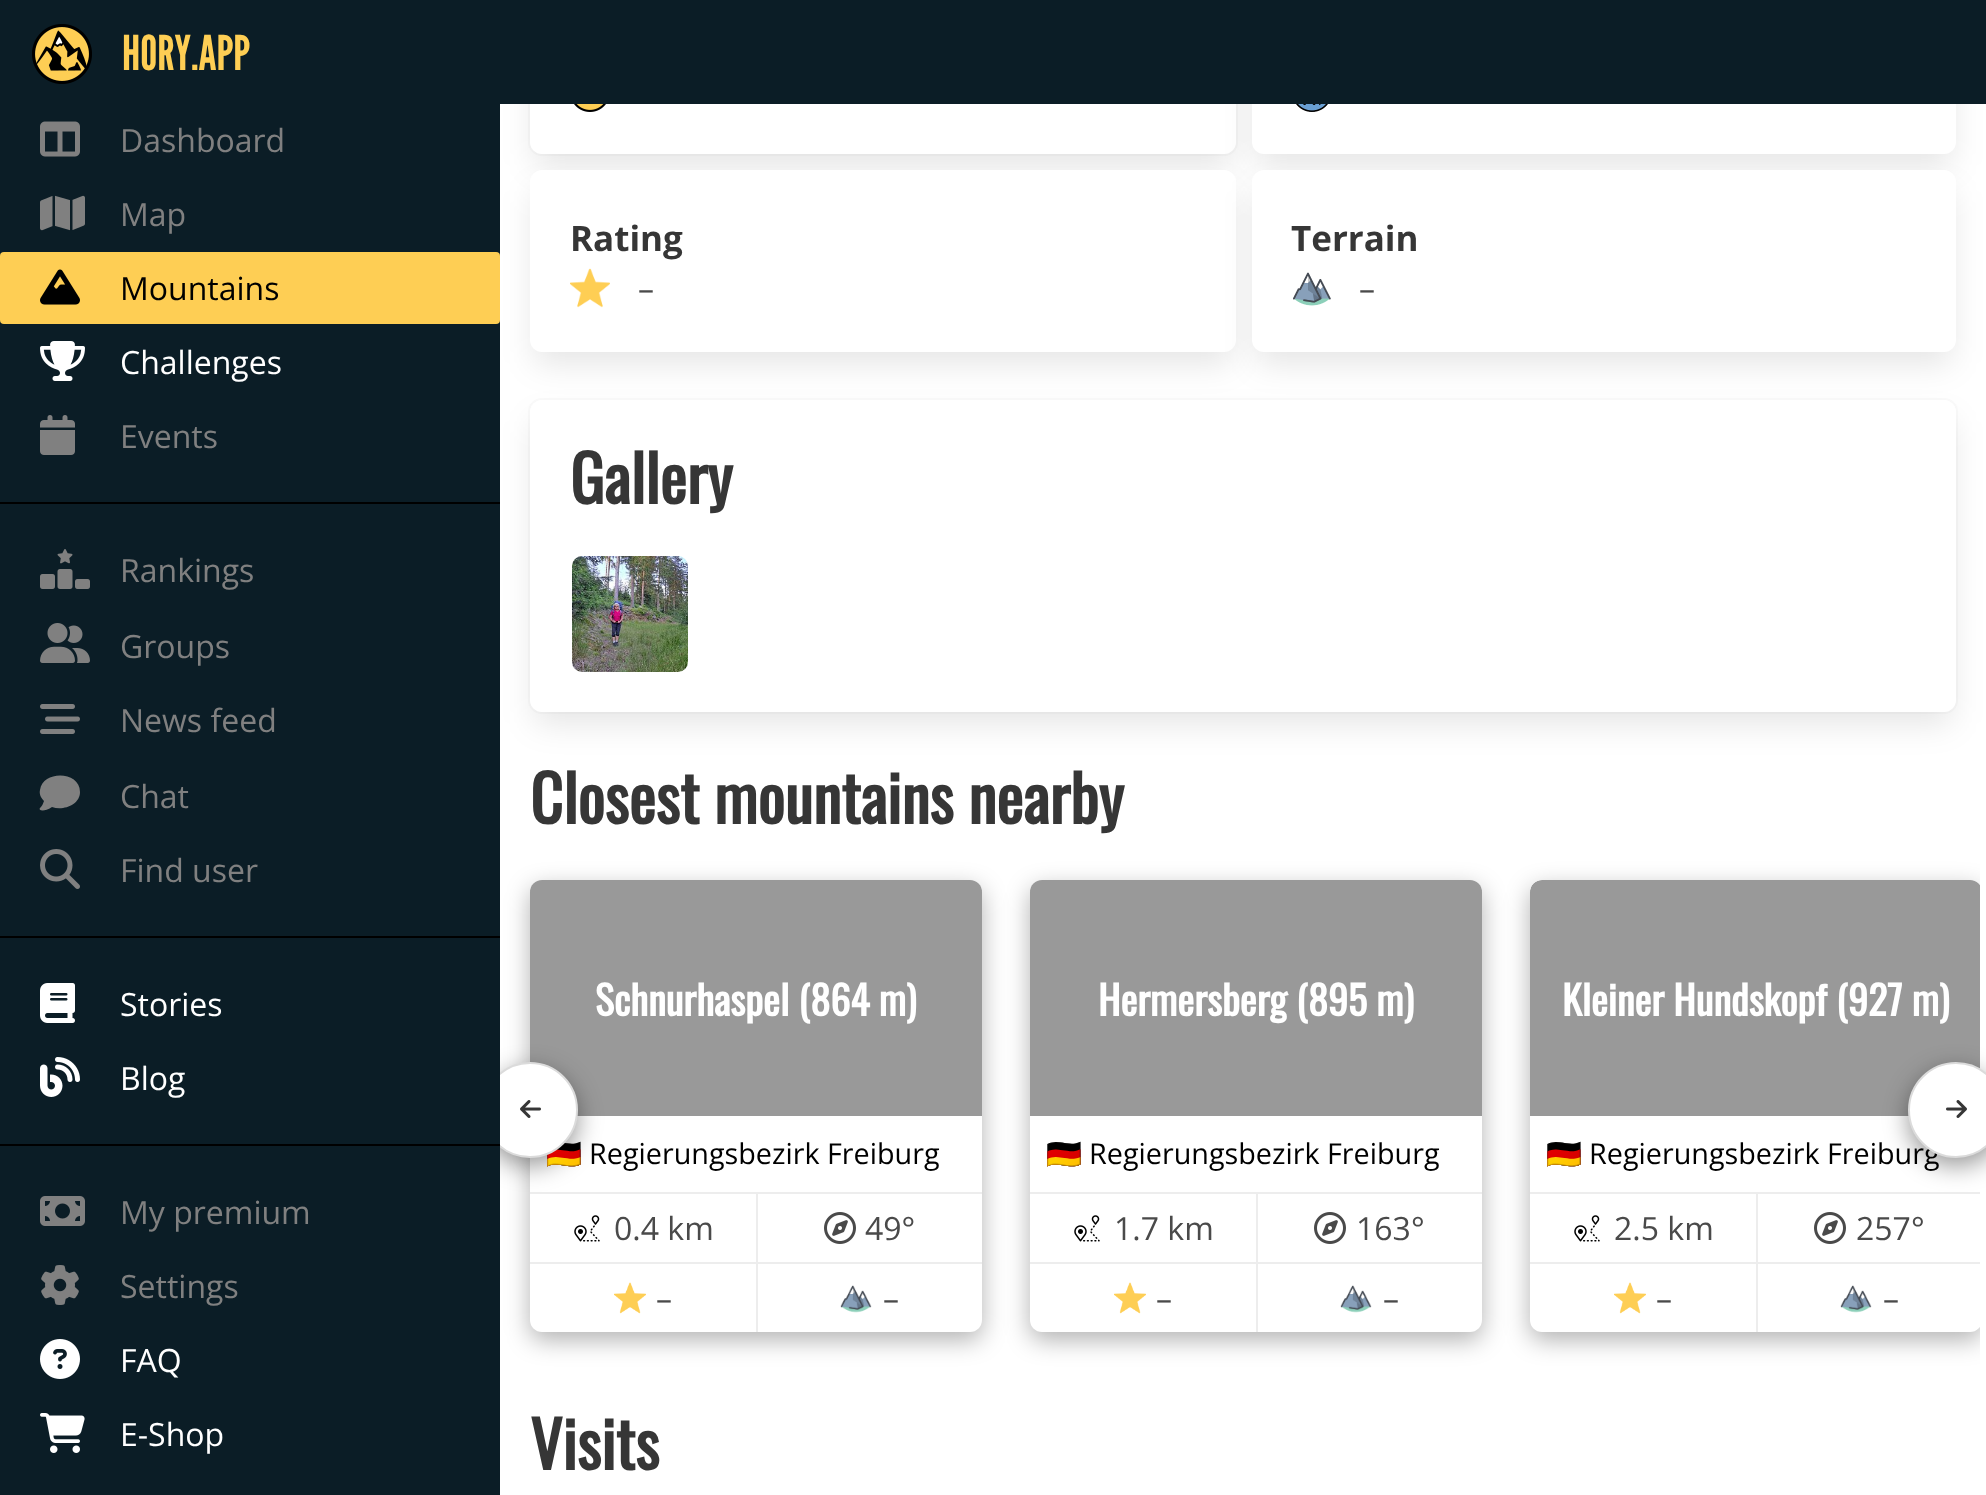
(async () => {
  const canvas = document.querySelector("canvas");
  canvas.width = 1986;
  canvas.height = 1495;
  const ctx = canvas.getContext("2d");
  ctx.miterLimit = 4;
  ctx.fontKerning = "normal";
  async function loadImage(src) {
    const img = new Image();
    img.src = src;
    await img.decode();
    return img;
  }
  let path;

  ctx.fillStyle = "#ffffff";
  ctx.fillRect(0, 0, 1986, 1495);
  ctx.beginPath();
  ctx.roundRect(529, -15, 708, 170, 13);
  ctx.strokeStyle = "#fafafa";
  ctx.lineWidth = 2;
  ctx.stroke();
  ctx.fillStyle = "rgba(0, 0, 0, 0.1)";
  ctx.filter = "blur(16px)";
  ctx.beginPath();
  ctx.roundRect(534, -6, 698, 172, 8);
  ctx.fill();
  ctx.filter = "none";
  ctx.fillStyle = "#ffffff";
  ctx.beginPath();
  ctx.roundRect(530, -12, 706, 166, 12);
  ctx.fill();
  ctx.fillStyle = "rgba(0, 0, 0, 0.1)";
  ctx.filter = "blur(16px)";
  ctx.beginPath();
  ctx.roundRect(1256, -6, 696, 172, 8);
  ctx.fill();
  ctx.filter = "none";
  ctx.fillStyle = "#ffffff";
  ctx.beginPath();
  ctx.roundRect(1252, -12, 704, 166, 12);
  ctx.fill();
  ctx.beginPath();
  ctx.roundRect(529, 399, 1428, 314, 13);
  ctx.stroke();
  ctx.fillStyle = "rgba(0, 0, 0, 0.1)";
  ctx.filter = "blur(16px)";
  ctx.beginPath();
  ctx.roundRect(534, 420, 1418, 304, 8);
  ctx.fill();
  ctx.filter = "none";
  ctx.fillStyle = "#ffffff";
  ctx.beginPath();
  ctx.roundRect(530, 400, 1426, 312, 12);
  ctx.fill();
  ctx.fillStyle = "rgba(0, 0, 0, 0.1)";
  ctx.filter = "blur(16px)";
  ctx.beginPath();
  ctx.roundRect(534, 190, 698, 174, 8);
  ctx.fill();
  ctx.filter = "none";
  ctx.fillStyle = "rgba(0, 0, 0, 0.3)";
  ctx.filter = "blur(12px)";
  ctx.beginPath();
  ctx.roundRect(530, 888, 452, 452, 12);
  ctx.fill();
  ctx.filter = "none";
  ctx.fillStyle = "#0b1d26";
  ctx.fillRect(0, 0, 500, 1495);
  ctx.fillStyle = "#000000";
  ctx.fillRect(0, 502, 500, 2);
  ctx.drawImage(await loadImage("img/1.png"), 32, 24, 60, 60);
  ctx.drawImage(await loadImage("img/2.png"), 40, 121, 40, 36);
  ctx.drawImage(await loadImage("img/3.png"), 40, 195, 45, 36);
  ctx.fillStyle = "#fece54";
  ctx.beginPath();
  ctx.roundRect(0, 252, 500, 72, 4);
  ctx.fill();
  ctx.drawImage(await loadImage("img/4.png"), 40, 269, 40, 36);
  ctx.drawImage(await loadImage("img/5.png"), 40, 341, 45, 40);
  ctx.drawImage(await loadImage("img/6.png"), 40, 415, 35, 40);
  ctx.fillStyle = "#000000";
  ctx.fillRect(0, 936, 500, 2);
  ctx.drawImage(await loadImage("img/7.png"), 40, 549, 50, 40);
  ctx.drawImage(await loadImage("img/8.png"), 40, 623, 50, 40);
  ctx.drawImage(await loadImage("img/9.png"), 40, 704, 40, 30);
  ctx.fillStyle = "#808080";
  path = new Path2D("M80 792C80 805 63 811 52 807C43 813 38 810 40 808C42 806 43 804 44 801C41 798 39 794 40 790C43 770 80 771 80 792Z");
  ctx.fill(path);
  ctx.drawImage(await loadImage("img/10.png"), 40, 849, 40, 40);
  ctx.fillStyle = "#000000";
  ctx.fillRect(0, 1144, 500, 2);
  ctx.drawImage(await loadImage("img/11.png"), 40, 983, 35, 40);
  ctx.drawImage(await loadImage("img/12.png"), 40, 1057, 40, 40);
  ctx.drawImage(await loadImage("img/13.png"), 40, 1196, 45, 30);
  ctx.drawImage(await loadImage("img/14.png"), 41, 1265, 38, 40);
  ctx.drawImage(await loadImage("img/15.png"), 40, 1339, 40, 40);
  ctx.drawImage(await loadImage("img/16.png"), 40, 1413, 45, 40);
  ctx.fillStyle = "#0b1d26";
  ctx.fillRect(500, 0, 1486, 104);
  ctx.drawImage(await loadImage("img/17.png"), 574, 104, 32, 8);
  ctx.drawImage(await loadImage("img/18.png"), 1296, 104, 32, 8);
  ctx.fillStyle = "#ffffff";
  ctx.beginPath();
  ctx.roundRect(530, 170, 706, 182, 12);
  ctx.fill();
  ctx.drawImage(await loadImage("img/19.png"), 570, 268, 40, 40);
  ctx.fillStyle = "rgba(0, 0, 0, 0.1)";
  ctx.filter = "blur(16px)";
  ctx.beginPath();
  ctx.roundRect(1256, 190, 696, 174, 8);
  ctx.fill();
  ctx.filter = "none";
  ctx.fillStyle = "#ffffff";
  ctx.beginPath();
  ctx.roundRect(1252, 170, 704, 182, 12);
  ctx.fill();
  ctx.drawImage(await loadImage("img/20.png"), 1293, 272, 38, 34);
  ctx.drawImage(await loadImage("img/21.png"), 572, 556, 116, 116);
  ctx.beginPath();
  ctx.roundRect(530, 880, 452, 452, 12);
  ctx.fill();
  ctx.fillStyle = "rgba(0, 0, 0, 0.4)";
  ctx.beginPath();
  ctx.roundRect(530, 880, 452, 236, [12, 12, 0, 0]);
  ctx.fill();
  ctx.fillStyle = "#ededed";
  ctx.fillRect(530, 1192, 452, 2);
  ctx.fillRect(756, 1194, 2, 68);
  ctx.drawImage(await loadImage("img/22.png"), 574, 1215, 26, 27);
  ctx.drawImage(await loadImage("img/23.png"), 824, 1212, 32, 32);
  ctx.fillRect(530, 1262, 452, 2);
  ctx.fillRect(756, 1264, 2, 68);
  ctx.drawImage(await loadImage("img/24.png"), 614, 1282, 32, 32);
  ctx.drawImage(await loadImage("img/25.png"), 840, 1285, 32, 28);
  ctx.fillStyle = "rgba(0, 0, 0, 0.3)";
  ctx.filter = "blur(12px)";
  ctx.beginPath();
  ctx.roundRect(1030, 888, 452, 452, 12);
  ctx.fill();
  ctx.filter = "none";
  ctx.fillStyle = "#ffffff";
  ctx.beginPath();
  ctx.roundRect(1030, 880, 452, 452, 12);
  ctx.fill();
  ctx.fillStyle = "rgba(0, 0, 0, 0.4)";
  ctx.beginPath();
  ctx.roundRect(1030, 880, 452, 236, [12, 12, 0, 0]);
  ctx.fill();
  ctx.fillStyle = "#ededed";
  ctx.fillRect(1030, 1192, 452, 2);
  ctx.fillRect(1256, 1194, 2, 68);
  ctx.drawImage(await loadImage("img/22.png"), 1074, 1215, 26, 27);
  ctx.drawImage(await loadImage("img/23.png"), 1314, 1212, 32, 32);
  ctx.fillRect(1030, 1262, 452, 2);
  ctx.fillRect(1256, 1264, 2, 68);
  ctx.drawImage(await loadImage("img/24.png"), 1114, 1282, 32, 32);
  ctx.drawImage(await loadImage("img/25.png"), 1340, 1285, 32, 28);
  ctx.save();
  ctx.beginPath();
  ctx.rect(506, 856, 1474, 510);
  ctx.clip();
  ctx.fillStyle = "rgba(0, 0, 0, 0.3)";
  ctx.filter = "blur(12px)";
  ctx.beginPath();
  ctx.roundRect(1530, 888, 452, 452, 12);
  ctx.fill();
  ctx.filter = "none";
  ctx.restore();
  ctx.save();
  ctx.beginPath();
  ctx.rect(506, 856, 1474, 510);
  ctx.clip();
  ctx.fillStyle = "#ffffff";
  ctx.beginPath();
  ctx.roundRect(1530, 880, 452, 452, 12);
  ctx.fill();
  ctx.restore();
  ctx.save();
  ctx.beginPath();
  ctx.roundRect(1530, 880, 452, 452, 12);
  ctx.clip();
  ctx.fillStyle = "#999999";
  ctx.beginPath();
  ctx.roundRect(1530, 880, 450, 236, [12, 0, 0, 0]);
  ctx.fill();
  ctx.restore();
  ctx.fillRect(1530, 1192, 450, 2);
  ctx.fillRect(1756, 1194, 2, 68);
  ctx.drawImage(await loadImage("img/22.png"), 1574, 1215, 26, 27);
  ctx.drawImage(await loadImage("img/23.png"), 1814, 1212, 32, 32);
  ctx.fillRect(1530, 1262, 450, 2);
  ctx.fillRect(1756, 1264, 2, 68);
  ctx.drawImage(await loadImage("img/24.png"), 1614, 1282, 32, 32);
  ctx.drawImage(await loadImage("img/25.png"), 1840, 1285, 32, 28);
  ctx.save();
  ctx.beginPath();
  ctx.rect(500, 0, 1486, 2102);
  ctx.clip();
  ctx.fillStyle = "rgba(0, 0, 0, 0.4)";
  ctx.filter = "blur(12px)";
  ctx.beginPath();
  ctx.roundRect(482, 1070, 96, 96, 48);
  ctx.fill();
  ctx.filter = "none";
  ctx.restore();
  ctx.fillStyle = "rgba(0, 0, 0, 0.4)";
  ctx.filter = "blur(12px)";
  ctx.beginPath();
  ctx.roundRect(1908, 1070, 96, 96, 48);
  ctx.fill();
  ctx.filter = "none";
  ctx.font = "48px League Gothic";
  ctx.fillStyle = "#fece54";
  ctx.fillText("HORY.APP", 122, 70);
  ctx.font = "32px Open Sans";
  ctx.fillStyle = "#808080";
  ctx.fillText("Dashboard", 120, 152);
  ctx.fillText("Map", 120, 226);
  ctx.fillStyle = "#000000";
  ctx.fillText("Mountains", 120, 300);
  ctx.fillStyle = "#ffffff";
  ctx.fillText("Challenges", 120, 374);
  ctx.fillStyle = "#808080";
  for (const [text, x, y] of [
    ["Events", 120, 448],
    ["Rankings", 120, 582],
    ["Groups", 120, 658],
    ["News feed", 120, 732],
    ["Chat", 120, 808],
    ["Find user", 120, 882],
  ]) {
    ctx.fillText(text, x, y);
  }
  ctx.fillStyle = "#ffffff";
  ctx.fillText("Stories", 120, 1016);
  ctx.fillText("Blog", 120, 1090);
  ctx.fillStyle = "#808080";
  ctx.fillText("My premium", 120, 1224);
  ctx.fillText("Settings", 120, 1298);
  ctx.fillStyle = "#ffffff";
  ctx.fillText("FAQ", 120, 1372);
  ctx.fillText("E-Shop", 120, 1446);
  ctx.font = "bold 35px Open Sans";
  ctx.fillStyle = "#363636";
  ctx.fillText("Rating", 570, 251);
  ctx.font = "32px Open Sans";
  ctx.fillStyle = "#4a4a4a";
  ctx.fillText("–", 638, 300);
  ctx.font = "bold 35px Open Sans";
  ctx.fillStyle = "#363636";
  ctx.fillText("Terrain", 1291, 251);
  ctx.font = "32px Open Sans";
  ctx.fillStyle = "#4a4a4a";
  ctx.fillText("–", 1359, 300);
  ctx.font = "bold 64px Oswald";
  ctx.fillStyle = "#363636";
  ctx.fillText("Gallery", 570, 504);
  ctx.fillText("Closest mountains nearby", 530, 824);
  ctx.font = "bold 40px Oswald";
  ctx.fillStyle = "#ffffff";
  ctx.fillText("Schnurhaspel (864 m)", 595, 1016);
  ctx.font = "28.75px Noto Color Emoji";
  ctx.fillStyle = "#000000";
  ctx.fillText("🇩🇪", 546, 1164);
  ctx.font = "28.75px Open Sans";
  ctx.fillText("Regierungsbezirk Freiburg", 589, 1164);
  ctx.font = "32px Open Sans";
  ctx.fillStyle = "#4a4a4a";
  for (const [text, x, y] of [
    ["0.4 km", 614, 1240],
    ["49°", 865, 1240],
    ["–", 656, 1310],
    ["–", 883, 1310],
  ]) {
    ctx.fillText(text, x, y);
  }
  ctx.font = "bold 40px Oswald";
  ctx.fillStyle = "#ffffff";
  ctx.fillText("Hermersberg (895 m)", 1098, 1016);
  ctx.font = "28.75px Noto Color Emoji";
  ctx.fillStyle = "#000000";
  ctx.fillText("🇩🇪", 1046, 1164);
  ctx.font = "28.75px Open Sans";
  ctx.fillText("Regierungsbezirk Freiburg", 1089, 1164);
  ctx.font = "32px Open Sans";
  ctx.fillStyle = "#4a4a4a";
  for (const [text, x, y] of [
    ["1.7 km", 1114, 1240],
    ["163°", 1356, 1240],
    ["–", 1156, 1310],
    ["–", 1383, 1310],
  ]) {
    ctx.fillText(text, x, y);
  }
  ctx.font = "bold 40px Oswald";
  ctx.fillStyle = "#ffffff";
  ctx.fillText("Kleiner Hundskopf (927 m)", 1562, 1016);
  ctx.font = "28.75px Noto Color Emoji";
  ctx.fillStyle = "#000000";
  ctx.fillText("🇩🇪", 1546, 1164);
  ctx.font = "28.75px Open Sans";
  ctx.fillText("Regierungsbezirk Freiburg", 1589, 1164);
  ctx.font = "32px Open Sans";
  ctx.fillStyle = "#4a4a4a";
  for (const [text, x, y] of [
    ["2.5 km", 1614, 1240],
    ["257°", 1856, 1240],
    ["–", 1656, 1310],
    ["–", 1883, 1310],
  ]) {
    ctx.fillText(text, x, y);
  }
  ctx.save();
  ctx.beginPath();
  ctx.rect(500, 0, 1486, 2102);
  ctx.clip();
  ctx.fillStyle = "#ffffff";
  ctx.beginPath();
  ctx.arc(530, 1110, 47, 0, Math.PI * 2);
  ctx.fill();
  ctx.strokeStyle = "#dbdbdb";
  ctx.stroke();
  ctx.restore();
  ctx.drawImage(await loadImage("img/26.png"), 520, 1100, 21, 18);
  ctx.fillStyle = "#ffffff";
  ctx.beginPath();
  ctx.arc(1956, 1110, 47, 0, Math.PI * 2);
  ctx.fill();
  ctx.strokeStyle = "#dbdbdb";
  ctx.stroke();
  ctx.drawImage(await loadImage("img/27.png"), 1946, 1100, 21, 18);
  ctx.font = "bold 64px Oswald";
  ctx.fillStyle = "#363636";
  ctx.fillText("Visits", 530, 1470);
})();
